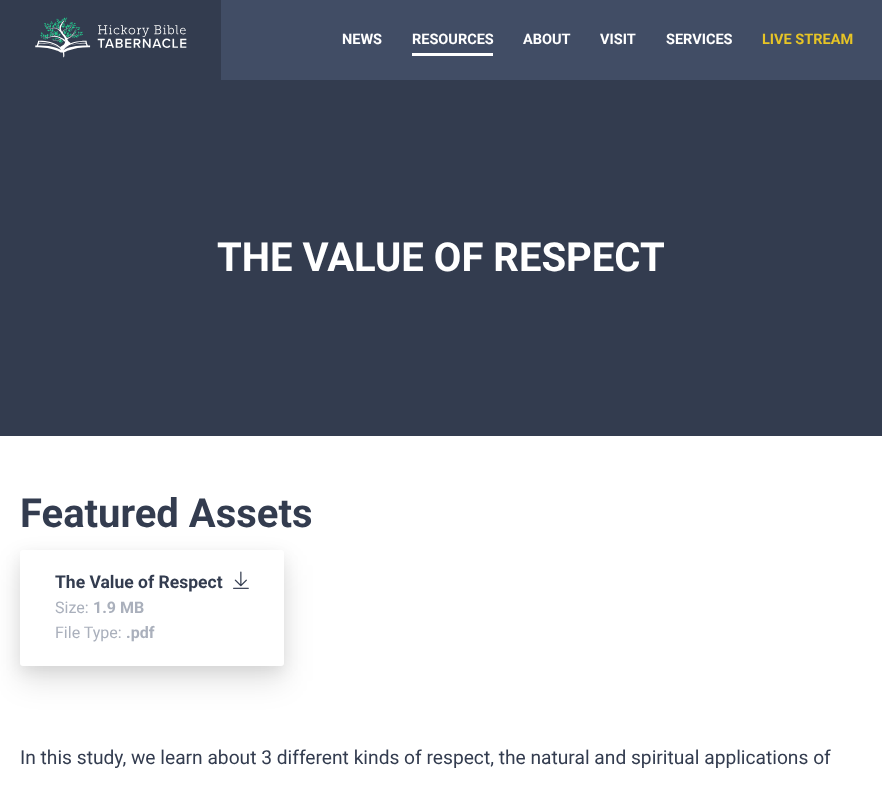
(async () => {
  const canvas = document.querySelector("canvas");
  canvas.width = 882;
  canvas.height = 787;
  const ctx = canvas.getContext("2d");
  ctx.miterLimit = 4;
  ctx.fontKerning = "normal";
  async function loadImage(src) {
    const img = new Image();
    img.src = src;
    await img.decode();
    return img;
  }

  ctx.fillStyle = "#ffffff";
  ctx.fillRect(0, 0, 882, 787);
  ctx.fillStyle = "#414d65";
  ctx.fillRect(221, 0, 661, 80);
  ctx.fillStyle = "#333c4f";
  ctx.fillRect(0, 0, 221, 80);
  ctx.drawImage(await loadImage("img/1.png"), 35, 17, 152, 41);
  ctx.fillStyle = "#ffffff";
  ctx.fillRect(412, 53, 81, 3);
  ctx.fillStyle = "#333c4f";
  ctx.fillRect(0, 80, 882, 356);
  ctx.fillStyle = "rgba(0, 0, 0, 0.08)";
  ctx.filter = "blur(7.5px)";
  ctx.beginPath();
  ctx.roundRect(20, 555, 264, 116, 3);
  ctx.fill();
  ctx.filter = "none";
  ctx.fillStyle = "rgba(0, 0, 0, 0.11)";
  ctx.filter = "blur(15px)";
  ctx.beginPath();
  ctx.roundRect(20, 565, 264, 116, 3);
  ctx.fill();
  ctx.filter = "none";
  ctx.fillStyle = "#ffffff";
  ctx.beginPath();
  ctx.roundRect(20, 550, 264, 116, 3);
  ctx.fill();
  ctx.drawImage(await loadImage("img/2.png"), 233, 571, 16, 18);
  ctx.font = "bold 14.5px Roboto";
  for (const [text, x, y] of [
    ["NEWS", 342, 44],
    ["RESOURCES", 412, 44],
    ["ABOUT", 523, 44],
    ["VISIT", 600, 44],
    ["SERVICES", 666, 44],
  ]) {
    ctx.fillText(text, x, y);
  }
  ctx.fillStyle = "#e6c426";
  ctx.fillText("LIVE STREAM", 762, 44);
  ctx.font = "bold 40px Roboto";
  ctx.fillStyle = "#ffffff";
  ctx.fillText("THE VALUE OF RESPECT", 217, 271);
  ctx.fillStyle = "#333c4f";
  ctx.fillText("Featured Assets", 20, 527);
  ctx.font = "bold 17.5px Roboto";
  ctx.fillText("The Value of Respect", 55, 588);
  ctx.font = "16px Roboto";
  ctx.fillStyle = "#aab0bc";
  ctx.fillText("Size:", 55, 613);
  ctx.font = "bold 16px Roboto";
  ctx.fillText("1.9 MB", 93, 613);
  ctx.font = "16px Roboto";
  ctx.fillText("File Type:", 55, 638);
  ctx.font = "bold 16px Roboto";
  ctx.fillText(".pdf", 126, 638);
  ctx.font = "19.2px Roboto";
  ctx.fillStyle = "#333c4f";
  ctx.fillText("In this study, we learn about 3 different kinds of respect, the natural and spiritual applications of", 20, 764);
})();
